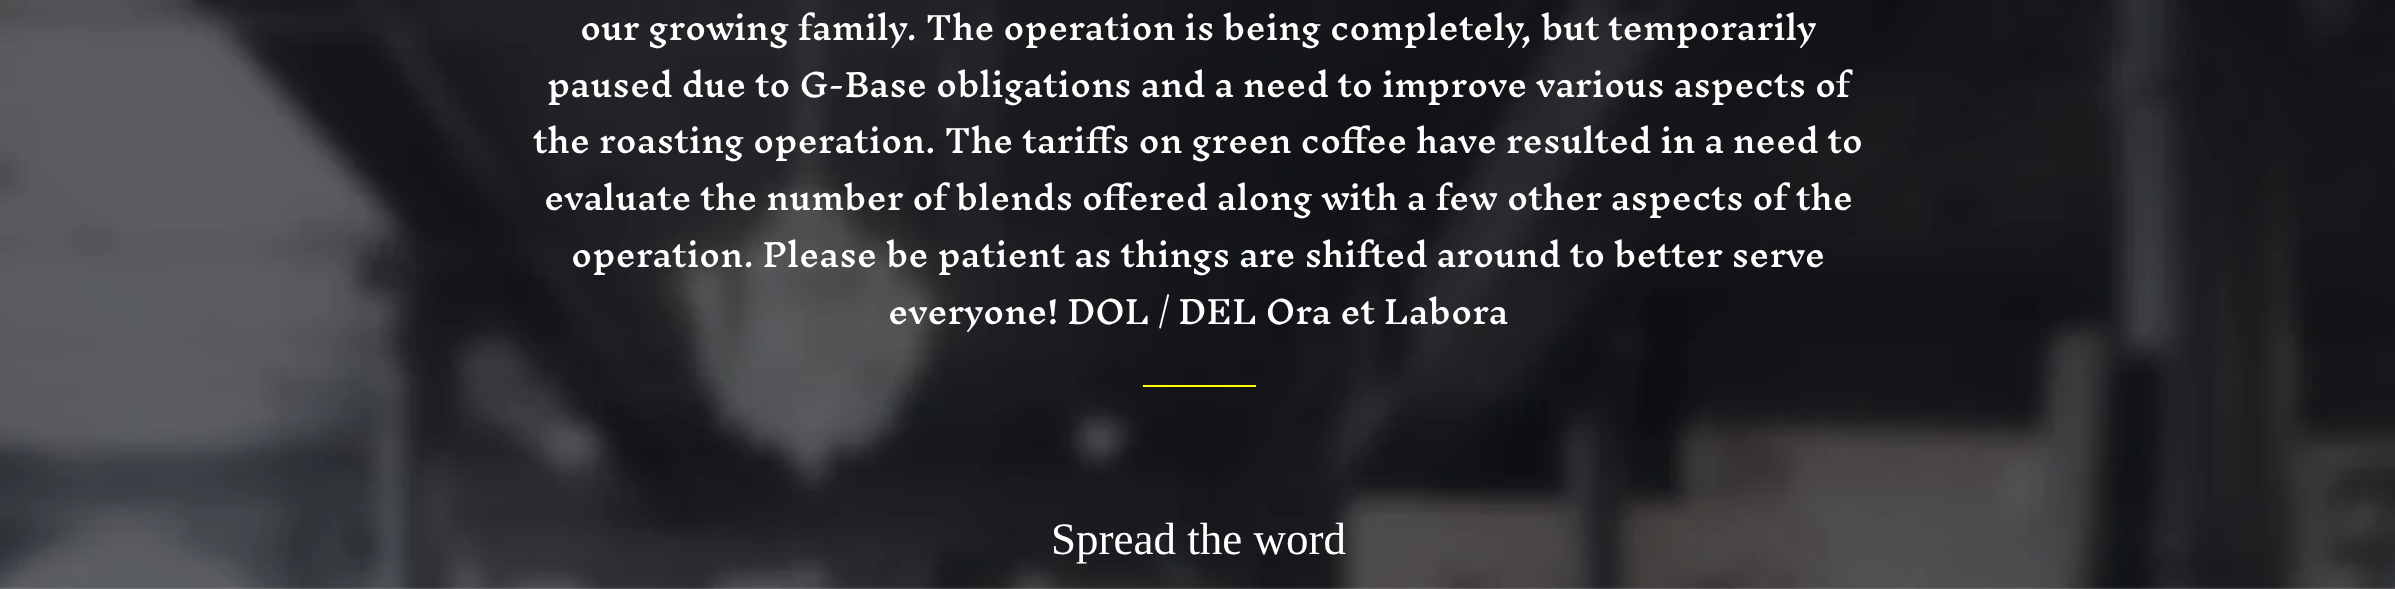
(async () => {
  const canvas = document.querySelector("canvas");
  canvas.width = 2395;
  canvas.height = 589;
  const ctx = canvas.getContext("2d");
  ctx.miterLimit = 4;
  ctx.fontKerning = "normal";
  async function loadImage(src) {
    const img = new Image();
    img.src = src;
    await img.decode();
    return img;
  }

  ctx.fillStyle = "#ffffff";
  ctx.fillRect(0, 0, 2395, 589);
  ctx.drawImage(await loadImage("img/1.png"), 0, 0, 2395, 589);
  ctx.fillStyle = "#ffff00";
  ctx.fillRect(1143, 385, 113, 2);
  ctx.font = "500 31.5px Inknut Antiqua";
  ctx.fillStyle = "#ffffff";
  for (const [text, x, y] of [
    ["our growing family. The operation is being completely, but temporarily", 580, 40],
    ["paused due to G-Base obligations and a need to improve various aspects of", 547, 97],
    ["the roasting operation. The tariffs on green coffee have resulted in a need to", 533, 153],
    ["evaluate the number of blends offered along with a few other aspects of the", 544, 210],
    ["operation. Please be patient as things are shifted around to better serve", 571, 267],
    ["everyone! DOL / DEL Ora et Labora", 888, 324],
  ]) {
    ctx.fillText(text, x, y);
  }
  ctx.font = "45px Liberation Serif";
  ctx.fillText("Spread the word", 1051, 554);
})();
